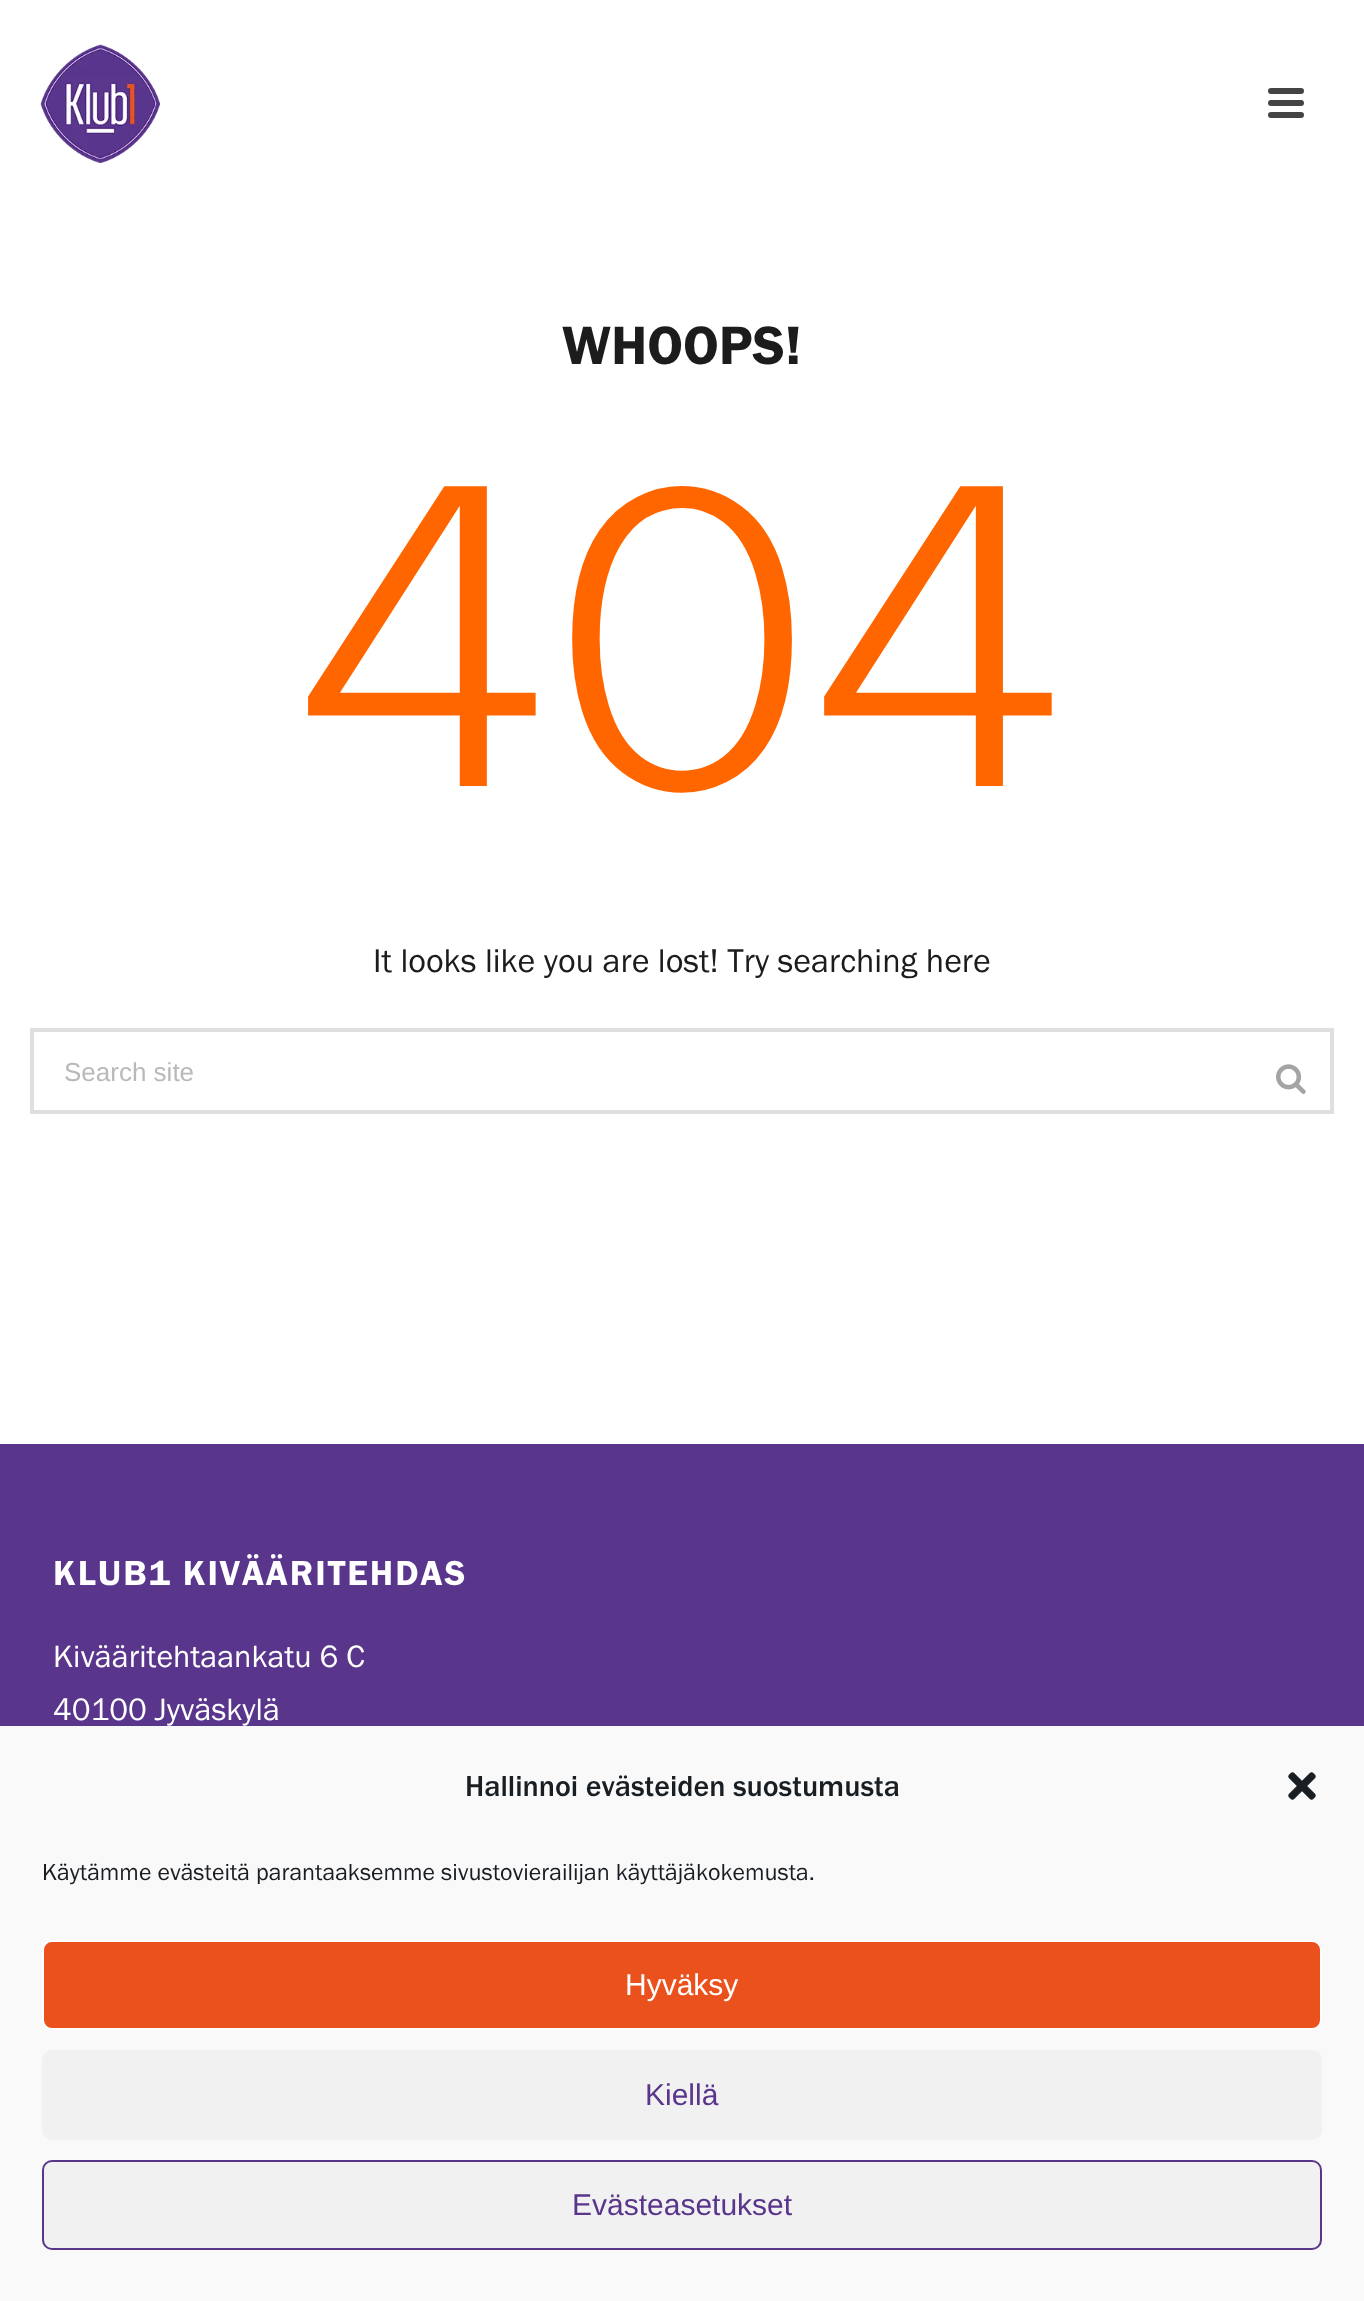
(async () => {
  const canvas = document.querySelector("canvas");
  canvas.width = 1364;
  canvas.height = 2301;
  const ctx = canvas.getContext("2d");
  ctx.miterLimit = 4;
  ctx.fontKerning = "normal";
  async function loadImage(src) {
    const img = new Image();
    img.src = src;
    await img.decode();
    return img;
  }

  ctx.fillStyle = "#ffffff";
  ctx.fillRect(0, 0, 1364, 2301);
  ctx.drawImage(await loadImage("img/1.png"), 40, 44, 120, 119);
  ctx.fillStyle = "#444444";
  ctx.beginPath();
  ctx.roundRect(1268, 88, 36, 6, 3);
  ctx.fill();
  ctx.beginPath();
  ctx.roundRect(1268, 100, 36, 6, 3);
  ctx.fill();
  ctx.beginPath();
  ctx.roundRect(1268, 112, 36, 6, 3);
  ctx.fill();
  ctx.strokeStyle = "#dfdfdf";
  ctx.lineWidth = 4;
  ctx.strokeRect(32, 1030, 1300, 82);
  ctx.drawImage(await loadImage("img/2.png"), 1276, 1064, 30, 30);
  ctx.fillStyle = "#59358c";
  ctx.fillRect(0, 1444, 1364, 282);
  ctx.fillStyle = "#f9f9f9";
  ctx.fillRect(0, 1726, 1364, 575);
  ctx.drawImage(await loadImage("img/3.png"), 1288, 1772, 28, 28);
  ctx.fillStyle = "#eb511c";
  ctx.beginPath();
  ctx.roundRect(43, 1941, 1278, 88, 9);
  ctx.fill();
  ctx.strokeStyle = "#ffffff";
  ctx.lineWidth = 2;
  ctx.stroke();
  ctx.fillStyle = "#f1f1f1";
  ctx.beginPath();
  ctx.roundRect(42, 2050, 1280, 90, 10);
  ctx.fill();
  ctx.beginPath();
  ctx.roundRect(43, 2161, 1278, 88, 9);
  ctx.fill();
  ctx.strokeStyle = "#59358c";
  ctx.stroke();
  ctx.font = "56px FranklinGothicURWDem";
  ctx.fillStyle = "#1c1c1c";
  ctx.fillText("WHOOPS!", 562, 364);
  ctx.font = "440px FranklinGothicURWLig";
  ctx.fillStyle = "#ff6600";
  ctx.fillText("404", 295, 786);
  ctx.font = "34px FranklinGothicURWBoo";
  ctx.fillStyle = "#1c1c1c";
  ctx.fillText("It looks like you are lost! Try searching here", 373, 972);
  ctx.font = "26px Liberation Sans";
  ctx.fillStyle = "#b9b9b9";
  ctx.fillText("Search site", 64, 1081);
  ctx.letterSpacing = "2px";
  ctx.font = "36px FranklinGothicURWDem";
  ctx.fillStyle = "#ffffff";
  ctx.fillText("KLUB1 KIVÄÄRITEHDAS", 53, 1585);
  ctx.letterSpacing = "0px";
  ctx.font = "32px FranklinGothicURWBoo";
  ctx.fillText("Kivääritehtaankatu 6 C", 53, 1667);
  ctx.fillText("40100 Jyväskylä", 53, 1720);
  ctx.font = "30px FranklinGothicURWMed";
  ctx.fillStyle = "#191e23";
  ctx.fillText("Hallinnoi evästeiden suostumusta", 465, 1796);
  ctx.font = "24px FranklinGothicURWBoo";
  ctx.fillText("Käytämme evästeitä parantaaksemme sivustovierailijan käyttäjäkokemusta.", 42, 1880);
  ctx.font = "30px Liberation Sans";
  ctx.fillStyle = "#ffffff";
  ctx.fillText("Hyväksy", 625, 1995);
  ctx.fillStyle = "#59358c";
  ctx.fillText("Kiellä", 645, 2105);
  ctx.fillText("Evästeasetukset", 572, 2215);
})();
